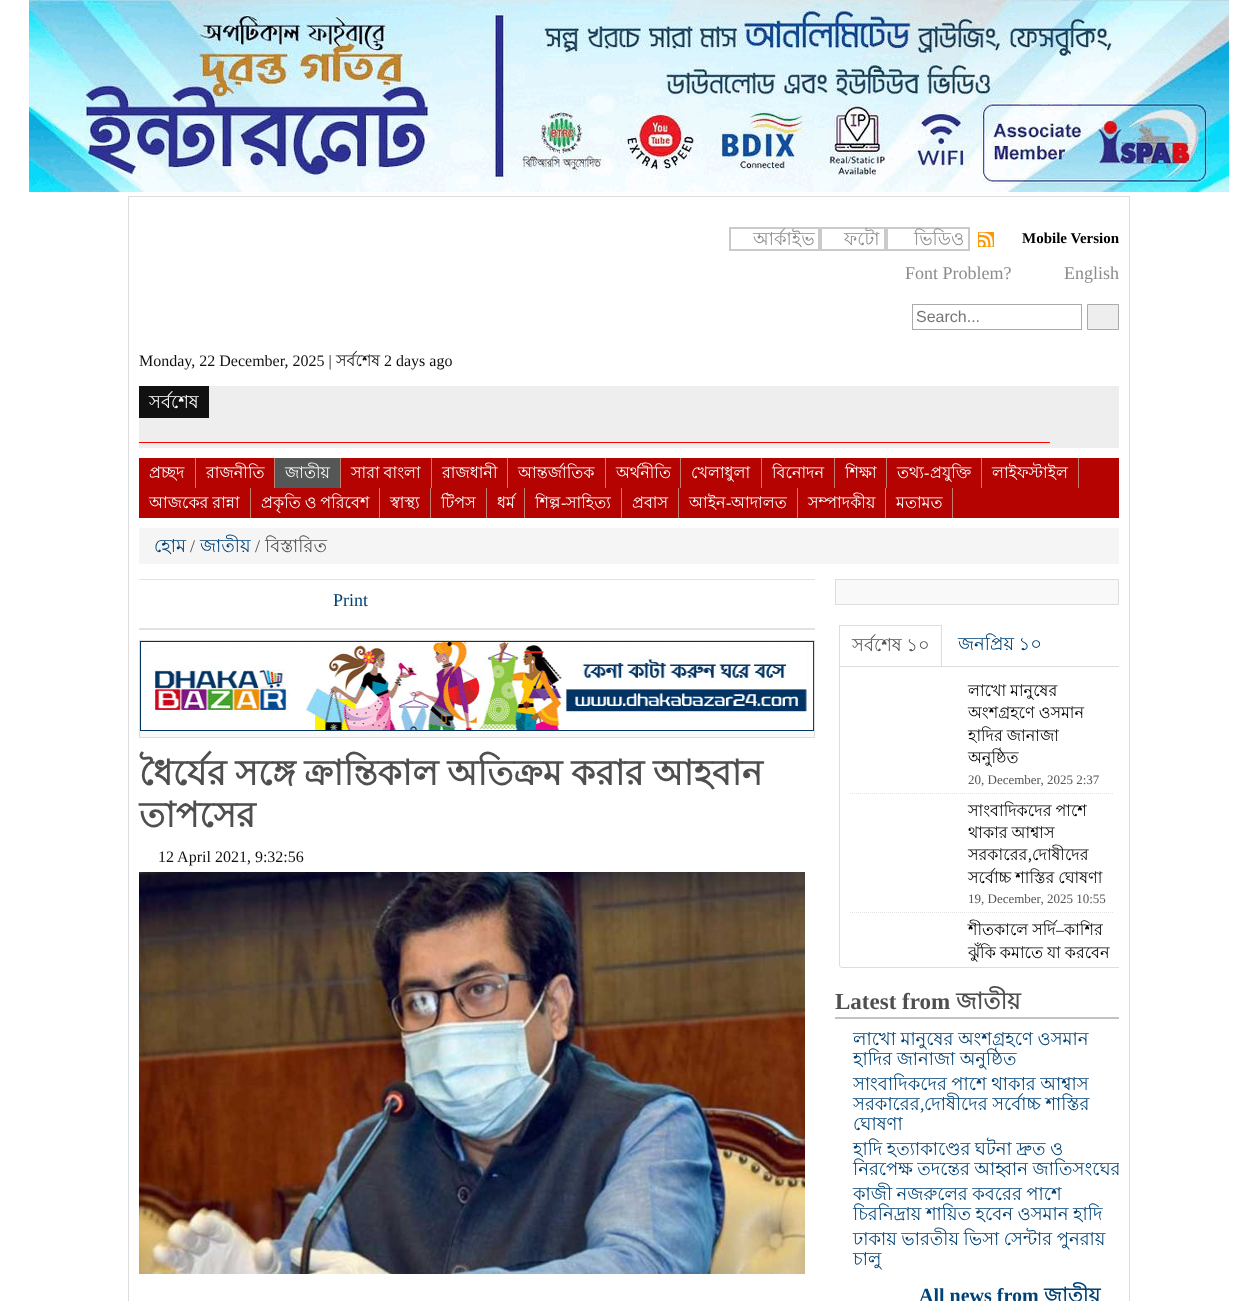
(async () => {
  const canvas = document.querySelector("canvas");
  canvas.width = 1258;
  canvas.height = 1301;
  const ctx = canvas.getContext("2d");
  ctx.miterLimit = 4;
  ctx.fontKerning = "normal";
  async function loadImage(src) {
    const img = new Image();
    img.src = src;
    await img.decode();
    return img;
  }
  let path;

  ctx.fillStyle = "#ffffff";
  ctx.fillRect(0, 0, 1258, 1301);
  ctx.drawImage(await loadImage("img/1.png"), 29, 0, 1200, 192);
  ctx.strokeStyle = "#dddddd";
  ctx.strokeRect(128.5, 196.5, 1001, 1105);
  ctx.strokeStyle = "#cacaca";
  ctx.lineWidth = 2;
  ctx.strokeRect(730, 228, 89, 22);
  ctx.strokeRect(821, 228, 64, 22);
  ctx.strokeRect(887, 228, 82, 22);
  ctx.drawImage(await loadImage("img/2.png"), 978, 232, 16, 15);
  ctx.strokeStyle = "#aaaaaa";
  ctx.lineWidth = 1;
  ctx.strokeRect(912.5, 304.5, 169, 25);
  ctx.fillStyle = "#eeeeee";
  ctx.beginPath();
  ctx.rect(1087.5, 304.5, 31, 25);
  ctx.fill();
  ctx.stroke();
  for (const [x, y, w, h, color] of [
    [139, 386, 980, 62, "#eeeeee"],
    [139, 386, 70, 32, "#111111"],
    [139, 442, 911, 1, "#ff0000"],
    [139, 458, 980, 60, "#b50301"],
    [195, 458, 1, 30, "#c48073"],
    [274, 458, 1, 30, "#c48073"],
    [275, 458, 65, 30, "#555656"],
    [340, 458, 1, 30, "#c48073"],
    [431, 458, 1, 30, "#c48073"],
    [507, 458, 1, 30, "#c48073"],
    [605, 458, 1, 30, "#c48073"],
    [680, 458, 1, 30, "#c48073"],
    [761, 458, 1, 30, "#c48073"],
    [834, 458, 1, 30, "#c48073"],
    [886, 458, 1, 30, "#c48073"],
    [981, 458, 1, 30, "#c48073"],
    [1078, 458, 1, 30, "#c48073"],
    [250, 488, 1, 30, "#c48073"],
    [379, 488, 1, 30, "#c48073"],
    [430, 488, 1, 30, "#c48073"],
    [486, 488, 1, 30, "#c48073"],
    [524, 488, 1, 30, "#c48073"],
    [621, 488, 1, 30, "#c48073"],
    [678, 488, 1, 30, "#c48073"],
    [797, 488, 1, 30, "#c48073"],
    [885, 488, 1, 30, "#c48073"],
    [952, 488, 1, 30, "#c48073"],
    [139, 528, 980, 36, "#f5f5f5"],
    [139, 579, 676, 1, "#e2e2e2"],
    [139, 628, 676, 2, "#e2e2e2"],
    [140, 731, 674, 6, "#f9f9f9"],
  ]) {
    ctx.fillStyle = color;
    ctx.fillRect(x, y, w, h);
  }
  ctx.strokeStyle = "#dddddd";
  ctx.strokeRect(139.5, 640.5, 675, 97);
  ctx.drawImage(await loadImage("img/3.png"), 140, 641, 674, 90);
  ctx.drawImage(await loadImage("img/4.png"), 139, 872, 666, 402);
  ctx.beginPath();
  ctx.rect(835.5, 579.5, 283, 25);
  ctx.fill();
  ctx.stroke();
  ctx.save();
  ctx.beginPath();
  ctx.rect(825, 579, 294, 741);
  ctx.clip();
  ctx.beginPath();
  ctx.roundRect(839.5, 666.5, 285, 301, [0, 0, 2.5, 2.5]);
  ctx.stroke();
  ctx.restore();
  ctx.strokeRect(839.5, 625.5, 102, 41);
  path = new Path2D("M850 793.5H1114");
  ctx.strokeStyle = "#e2e2e2";
  ctx.setLineDash([1, 1]);
  ctx.stroke(path);
  path = new Path2D("M850 912.5H1114");
  ctx.stroke(path);
  ctx.fillStyle = "#c2c2c2";
  ctx.fillRect(835, 1017, 284, 2);
  ctx.font = "18px Lohit Bengali";
  ctx.fillStyle = "#8c8c8c";
  for (const [text, x, y] of [
    ["আর্কাইভ", 753, 245],
    ["ফটো", 844, 245],
    ["ভিডিও", 914, 245],
  ]) {
    ctx.fillText(text, x, y);
  }
  ctx.font = "bold 15px Liberation Serif";
  ctx.fillStyle = "#000000";
  ctx.fillText("Mobile Version", 1022, 243);
  ctx.font = "18px Liberation Serif";
  ctx.fillStyle = "#8c8c8c";
  ctx.fillText("Font Problem?", 905, 279);
  ctx.fillText("English", 1064, 279);
  ctx.font = "16px Liberation Sans";
  ctx.fillStyle = "#757575";
  ctx.fillText("Search...", 916, 322);
  ctx.font = "16px Liberation Serif";
  ctx.fillStyle = "#111111";
  ctx.fillText("Monday, 22 December, 2025 |", 139, 366);
  ctx.font = "16px Lohit Bengali";
  ctx.fillText("সর্বশেষ", 336, 366);
  ctx.font = "16px Liberation Serif";
  ctx.fillText("2 days ago", 384, 366);
  ctx.font = "18px Lohit Bengali";
  ctx.fillStyle = "#ffffff";
  ctx.fillText("সর্বশেষ", 149, 408);
  ctx.font = "16px Lohit Bengali";
  for (const [text, x, y] of [
    ["প্রচ্ছদ", 149, 478],
    ["রাজনীতি", 206, 478],
    ["জাতীয়", 285, 478],
  ]) {
    ctx.fillText(text, x, y);
  }
  ctx.wordSpacing = "-0.5px";
  ctx.fillText("সারা বাংলা", 351, 478);
  ctx.wordSpacing = "0px";
  for (const [text, x, y] of [
    ["রাজধানী", 442, 478],
    ["আন্তর্জাতিক", 518, 478],
    ["অর্থনীতি", 616, 478],
    ["খেলাধুলা", 691, 478],
    ["বিনোদন", 772, 478],
    ["শিক্ষা", 845, 478],
    ["তথ্য", 897, 478],
  ]) {
    ctx.fillText(text, x, y);
  }
  ctx.font = "16px Liberation Serif";
  ctx.fillText("-", 924, 478);
  ctx.font = "16px Lohit Bengali";
  ctx.fillText("প্রযুক্তি", 930, 478);
  ctx.fillText("লাইফস্টাইল", 992, 478);
  ctx.wordSpacing = "-0.5px";
  ctx.fillText("আজকের রান্না", 149, 508);
  ctx.fillText("প্রকৃতি ও পরিবেশ", 261, 508);
  ctx.wordSpacing = "0px";
  for (const [text, x, y] of [
    ["স্বাস্থ্য", 390, 508],
    ["টিপস", 441, 508],
    ["ধর্ম", 497, 508],
    ["শিল্প", 535, 508],
  ]) {
    ctx.fillText(text, x, y);
  }
  ctx.font = "16px Liberation Serif";
  ctx.fillText("-", 561, 508);
  ctx.font = "16px Lohit Bengali";
  for (const [text, x, y] of [
    ["সাহিত্য", 566, 508],
    ["প্রবাস", 632, 508],
    ["আইন", 689, 508],
  ]) {
    ctx.fillText(text, x, y);
  }
  ctx.font = "16px Liberation Serif";
  ctx.fillText("-", 726, 508);
  ctx.font = "16px Lohit Bengali";
  for (const [text, x, y] of [
    ["আদালত", 731, 508],
    ["সম্পাদকীয়", 808, 508],
    ["মতামত", 896, 508],
  ]) {
    ctx.fillText(text, x, y);
  }
  ctx.font = "18px Lohit Bengali";
  ctx.fillStyle = "#004276";
  ctx.fillText("হোম", 154, 552);
  ctx.font = "18px Liberation Serif";
  ctx.fillStyle = "#4f4f4f";
  ctx.fillText("/", 190, 552);
  ctx.font = "18px Lohit Bengali";
  ctx.fillStyle = "#004276";
  ctx.fillText("জাতীয়", 200, 552);
  ctx.font = "18px Liberation Serif";
  ctx.fillStyle = "#4f4f4f";
  ctx.fillText("/", 255, 552);
  ctx.font = "18px Lohit Bengali";
  ctx.fillText("বিস্তারিত", 265, 552);
  ctx.font = "18px Liberation Serif";
  ctx.fillStyle = "#004276";
  ctx.fillText("Print", 333, 606);
  ctx.wordSpacing = "-1px";
  ctx.font = "bold 35px Lohit Bengali";
  ctx.fillStyle = "#4f4f4f";
  ctx.fillText("ধৈর্যের সঙ্গে ক্রান্তিকাল অতিক্রম করার আহবান", 139, 785);
  ctx.wordSpacing = "0px";
  ctx.fillText("তাপসের", 139, 827);
  ctx.font = "16px Liberation Serif";
  ctx.fillStyle = "#111111";
  ctx.fillText("12 April 2021, 9:32:56", 158, 862);
  ctx.wordSpacing = "-0.5px";
  ctx.font = "18px Lohit Bengali";
  ctx.fillStyle = "#555555";
  ctx.fillText("সর্বশেষ ১০", 852, 651);
  ctx.fillStyle = "#004276";
  ctx.fillText("জনপ্রিয় ১০", 958, 650);
  ctx.font = "16px Lohit Bengali";
  ctx.fillStyle = "#000000";
  for (const [text, x, y] of [
    ["লাখো মানুষের", 968, 696],
    ["অংশগ্রহণে ওসমান", 968, 718],
    ["হাদির জানাজা", 968, 741],
  ]) {
    ctx.fillText(text, x, y);
  }
  ctx.wordSpacing = "0px";
  ctx.fillText("অনুষ্ঠিত", 968, 763);
  ctx.font = "13px Liberation Serif";
  ctx.fillStyle = "#555555";
  ctx.fillText("20, December, 2025 2:37", 968, 784);
  ctx.wordSpacing = "-0.5px";
  ctx.font = "16px Lohit Bengali";
  ctx.fillStyle = "#000000";
  ctx.fillText("সাংবাদিকদের পাশে", 968, 816);
  ctx.fillText("থাকার আশ্বাস", 968, 838);
  ctx.wordSpacing = "0px";
  ctx.fillText("সরকারের", 968, 860);
  ctx.font = "16px Liberation Serif";
  ctx.fillText(",", 1028, 860);
  ctx.font = "16px Lohit Bengali";
  ctx.fillText("দোষীদের", 1032, 860);
  ctx.wordSpacing = "-0.5px";
  ctx.fillText("সর্বোচ্চ শাস্তির ঘোষণা", 968, 883);
  ctx.wordSpacing = "0px";
  ctx.font = "13px Liberation Serif";
  ctx.fillStyle = "#555555";
  ctx.fillText("19, December, 2025 10:55", 968, 903);
  ctx.wordSpacing = "-0.5px";
  ctx.font = "16px Lohit Bengali";
  ctx.fillStyle = "#000000";
  ctx.fillText("শীতকালে সর্দি", 968, 935);
  ctx.wordSpacing = "0px";
  ctx.font = "16px Liberation Serif";
  ctx.fillText("–", 1056, 935);
  ctx.font = "16px Lohit Bengali";
  ctx.fillText("কাশির", 1064, 935);
  ctx.wordSpacing = "-0.5px";
  ctx.fillText("ঝুঁকি কমাতে যা করবেন", 968, 958);
  ctx.wordSpacing = "0px";
  ctx.font = "bold 23px Liberation Serif";
  ctx.fillStyle = "#4f4f4f";
  ctx.fillText("Latest from", 835, 1009);
  ctx.font = "bold 23px Lohit Bengali";
  ctx.fillText("জাতীয়", 956, 1009);
  ctx.wordSpacing = "-0.5px";
  ctx.font = "18px Lohit Bengali";
  ctx.fillStyle = "#004276";
  for (const [text, x, y] of [
    ["লাখো মানুষের অংশগ্রহণে ওসমান", 853, 1045],
    ["হাদির জানাজা অনুষ্ঠিত", 853, 1065],
    ["সাংবাদিকদের পাশে থাকার আশ্বাস", 853, 1090],
  ]) {
    ctx.fillText(text, x, y);
  }
  ctx.wordSpacing = "0px";
  ctx.fillText("সরকারের", 853, 1110);
  ctx.font = "18px Liberation Serif";
  ctx.fillText(",", 920, 1110);
  ctx.wordSpacing = "-0.5px";
  ctx.font = "18px Lohit Bengali";
  ctx.fillText("দোষীদের সর্বোচ্চ শাস্তির", 924, 1110);
  ctx.wordSpacing = "0px";
  ctx.fillText("ঘোষণা", 853, 1130);
  ctx.wordSpacing = "-0.5px";
  ctx.fillText("হাদি হত্যাকাণ্ডের ঘটনা দ্রুত ও", 853, 1155);
  ctx.save();
  ctx.beginPath();
  ctx.rect(825, 579, 294, 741);
  ctx.clip();
  ctx.fillText("নিরপেক্ষ তদন্তের আহ্বান জাতিসংঘের", 853, 1175);
  ctx.restore();
  for (const [text, x, y] of [
    ["কাজী নজরুলের কবরের পাশে", 853, 1200],
    ["চিরনিদ্রায় শায়িত হবেন ওসমান হাদি", 853, 1220],
    ["ঢাকায় ভারতীয় ভিসা সেন্টার পুনরায়", 853, 1245],
  ]) {
    ctx.fillText(text, x, y);
  }
  ctx.wordSpacing = "0px";
  ctx.fillText("চালু", 853, 1265);
  ctx.font = "bold 20px Liberation Serif";
  ctx.fillText("All news from", 919, 1302);
  ctx.font = "bold 20px Lohit Bengali";
  ctx.fillText("জাতীয়", 1044, 1302);
})();
